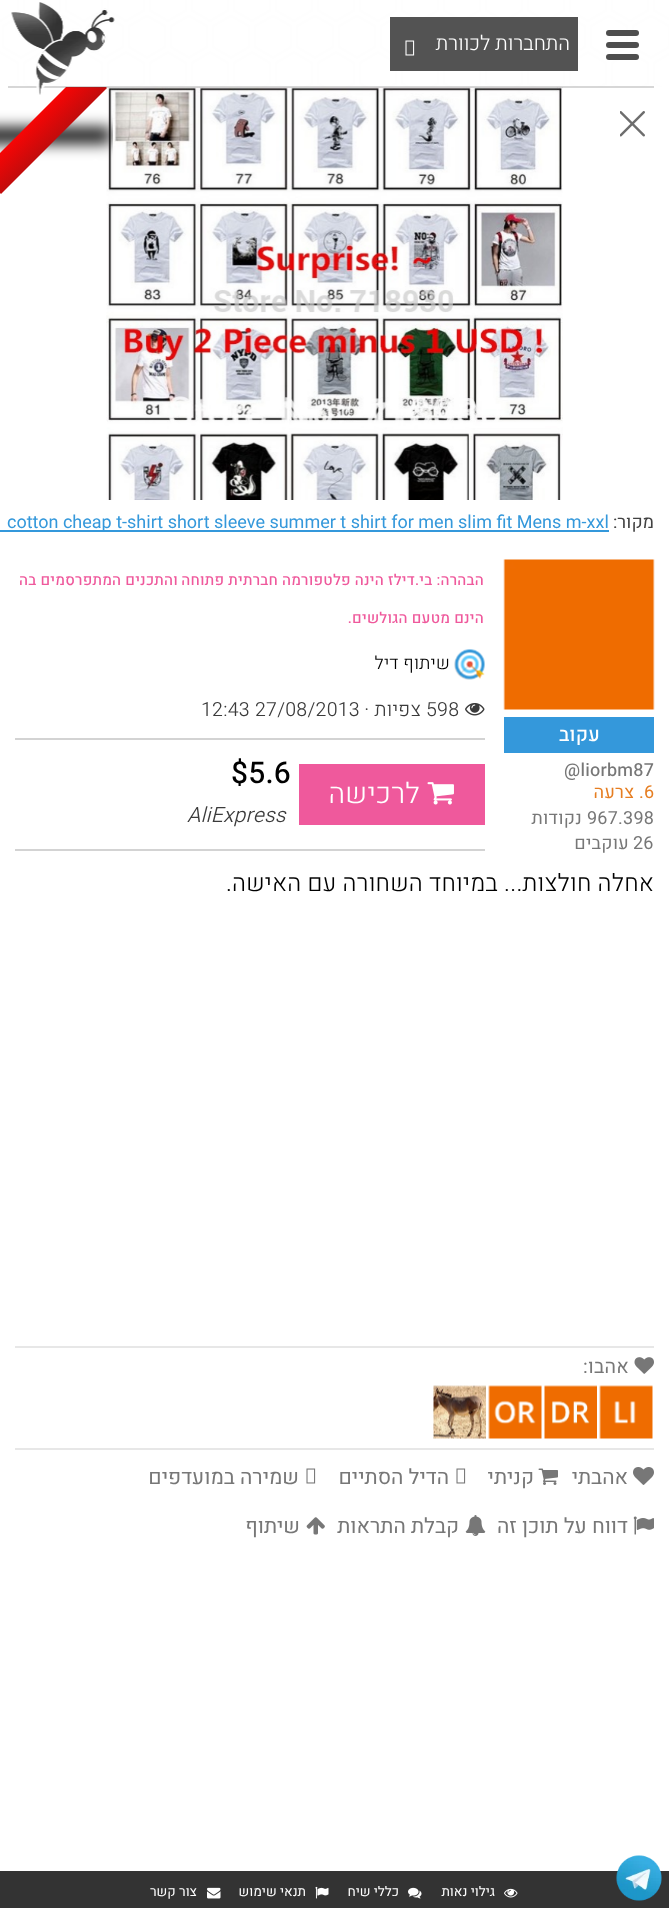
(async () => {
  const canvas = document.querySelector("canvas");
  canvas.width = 669;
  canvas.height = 1908;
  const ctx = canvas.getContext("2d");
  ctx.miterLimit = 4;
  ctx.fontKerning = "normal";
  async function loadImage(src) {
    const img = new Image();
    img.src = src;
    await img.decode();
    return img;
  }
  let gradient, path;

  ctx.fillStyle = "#ffffff";
  ctx.fillRect(0, 0, 669, 1908);
  ctx.drawImage(await loadImage("img/1.png"), 0, 0, 669, 87);
  ctx.drawImage(await loadImage("img/4.png"), 0, 0, 669, 87);
  ctx.fillStyle = "rgba(255, 255, 255, 0.87)";
  ctx.fillRect(0, 0, 669, 87);
  ctx.fillStyle = "#4e4e4e";
  ctx.beginPath();
  ctx.roundRect(606, 30, 33, 6, 3);
  ctx.fill();
  ctx.beginPath();
  ctx.roundRect(606, 42, 33, 6, 3);
  ctx.fill();
  ctx.beginPath();
  ctx.roundRect(606, 54, 33, 6, 3);
  ctx.fill();
  ctx.drawImage(await loadImage("img/5.png"), 106, 87, 457, 413);
  ctx.drawImage(await loadImage("img/6.png"), 122, 87, 441, 401);
  ctx.save();
  ctx.beginPath();
  ctx.rect(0, 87, 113, 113);
  ctx.clip();
  ctx.fillStyle = "#000000";
  ctx.filter = "blur(7.5px)";
  ctx.beginPath();
  ctx.rect(-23, 128, 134, 15);
  ctx.fill();
  ctx.filter = "none";
  ctx.restore();
  ctx.save();
  ctx.beginPath();
  ctx.rect(0, 87, 113, 113);
  ctx.clip();
  gradient = ctx.createLinearGradient(33, 120, 54, 141);
  gradient.addColorStop(0, "#f70505");
  gradient.addColorStop(1, "#c20c0c");
  ctx.fillStyle = gradient;
  path = new Path2D("M-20 173L86 67L107 88L1 194Z");
  ctx.fill(path);
  ctx.restore();
  ctx.fillStyle = "rgba(68, 68, 68, 0.21)";
  ctx.fillRect(8, 86, 646, 2);
  ctx.fillStyle = "#535353";
  ctx.fillRect(390, 17, 188, 54);
  ctx.drawImage(await loadImage("img/2.png"), 405, 40, 10, 16);
  ctx.drawImage(await loadImage("img/3.png"), 11, 2, 104, 93);
  ctx.fillStyle = "#3498db";
  ctx.fillRect(0, 530, 609, 2);
  ctx.drawImage(await loadImage("img/7.png"), 503, 559, 152, 151);
  ctx.fillRect(504, 717, 150, 36);
  ctx.drawImage(await loadImage("img/8.png"), 454, 649, 31, 31);
  ctx.drawImage(await loadImage("img/9.png"), 465, 703, 20, 13);
  for (const [x, y, w, h, color] of [
    [15, 738, 470, 2, "#d3d3d3"],
    [15, 849, 470, 2, "#d3d3d3"],
    [299, 764, 186, 61, "#ef599c"],
  ]) {
    ctx.fillStyle = color;
    ctx.fillRect(x, y, w, h);
  }
  ctx.drawImage(await loadImage("img/10.png"), 427, 782, 27, 23);
  ctx.fillStyle = "#e7e7e7";
  ctx.fillRect(15, 1346, 639, 2);
  ctx.drawImage(await loadImage("img/11.png"), 634, 1357, 20, 17);
  ctx.drawImage(await loadImage("img/12.png"), 599, 1385, 54, 54);
  ctx.drawImage(await loadImage("img/13.png"), 544, 1385, 53, 54);
  ctx.drawImage(await loadImage("img/14.png"), 488, 1385, 54, 54);
  ctx.drawImage(await loadImage("img/15.png"), 433, 1385, 53, 54);
  ctx.fillRect(15, 1448, 639, 2);
  ctx.drawImage(await loadImage("img/16.png"), 633, 1467, 21, 18);
  ctx.drawImage(await loadImage("img/17.png"), 538, 1468, 20, 17);
  ctx.drawImage(await loadImage("img/18.png"), 456, 1468, 10, 16);
  ctx.drawImage(await loadImage("img/18.png"), 306, 1468, 10, 16);
  ctx.drawImage(await loadImage("img/19.png"), 633, 1516, 21, 19);
  ctx.drawImage(await loadImage("img/20.png"), 465, 1515, 21, 21);
  ctx.drawImage(await loadImage("img/21.png"), 306, 1517, 19, 18);
  ctx.drawImage(await loadImage("img/22.png"), 620, 111, 25, 26);
  ctx.fillStyle = "#333333";
  ctx.fillRect(0, 1871, 669, 37);
  ctx.drawImage(await loadImage("img/23.png"), 616, 1855, 46, 46);
  ctx.drawImage(await loadImage("img/24.png"), 504, 1888, 14, 10);
  ctx.drawImage(await loadImage("img/25.png"), 408, 1887, 14, 12);
  ctx.drawImage(await loadImage("img/26.png"), 315, 1886, 14, 13);
  ctx.drawImage(await loadImage("img/27.png"), 207, 1887, 14, 12);
  ctx.direction = "rtl";
  ctx.font = "300 20.25px Heebo";
  ctx.fillStyle = "#ffffff";
  ctx.fillText("התחברות לכוורת", 570, 50);
  ctx.font = "16.5px Heebo";
  ctx.save();
  ctx.translate(103, 164);
  ctx.rotate(-45 * Math.PI / 180);
  ctx.fillText("הדיל הסתיים", 0, 0);
  ctx.restore();
  ctx.font = "18px Heebo";
  ctx.fillStyle = "#414141";
  ctx.fillText("מקור:", 654, 528);
  ctx.direction = "ltr";
  ctx.fillStyle = "#3498db";
  ctx.fillText("cotton cheap t-shirt short sleeve summer t shirt for men slim fit Mens m-xxl", 7, 528);
  ctx.letterSpacing = "0.25px";
  ctx.direction = "rtl";
  ctx.font = "500 19.5px Heebo";
  ctx.fillStyle = "#ffffff";
  ctx.fillText("עקוב", 600, 741);
  ctx.direction = "ltr";
  ctx.font = "500 18px Heebo";
  ctx.fillStyle = "#777777";
  ctx.fillText("@liorbm87", 564, 776);
  ctx.font = "18px Heebo";
  ctx.fillStyle = "#e67e22";
  ctx.fillText("6", 644, 798);
  ctx.direction = "rtl";
  ctx.fillText(". צרעה", 644, 798);
  ctx.direction = "ltr";
  ctx.fillStyle = "#777777";
  ctx.fillText("967.398", 587, 824);
  ctx.direction = "rtl";
  ctx.fillText("נקודות", 582, 824);
  ctx.direction = "ltr";
  ctx.fillText("26", 633, 849);
  ctx.direction = "rtl";
  ctx.fillText("עוקבים", 629, 849);
  ctx.font = "500 15px Heebo";
  ctx.fillStyle = "#ef599c";
  for (const [text, x, y] of [
    ["הבהרה: בי.דילז הינה פלטפורמה חברתית פתוחה", 484, 585],
    ["והתכנים המתפרסמים בה", 178, 585],
    ["הינם מטעם הגולשים.", 484, 623],
  ]) {
    ctx.fillText(text, x, y);
  }
  ctx.font = "300 18px Heebo";
  ctx.fillStyle = "#000000";
  ctx.fillText("שיתוף דיל", 450, 669);
  ctx.direction = "ltr";
  ctx.font = "300 19.5px Heebo";
  ctx.fillStyle = "#3b3b3b";
  ctx.fillText("598", 426, 716);
  ctx.direction = "rtl";
  ctx.fillText("צפיות ·", 421, 716);
  ctx.direction = "ltr";
  ctx.fillText("12:43 27/08/2013", 201, 716);
  ctx.direction = "rtl";
  ctx.font = "300 28.5px Heebo";
  ctx.fillStyle = "#ffffff";
  ctx.fillText("לרכישה", 420, 803);
  ctx.direction = "ltr";
  ctx.font = "500 30px Heebo";
  ctx.fillStyle = "#000000";
  ctx.fillText("$5.6", 231, 783);
  ctx.font = "italic 300 21px Heebo";
  ctx.fillStyle = "#3b3b3b";
  ctx.fillText("AliExpress", 187, 822);
  ctx.direction = "rtl";
  ctx.font = "300 24px Heebo";
  ctx.fillStyle = "#000000";
  ctx.fillText("אחלה חולצות... במיוחד השחורה עם האישה.", 654, 891);
  ctx.font = "19.5px Heebo";
  ctx.fillStyle = "#777777";
  ctx.fillText("אהבו:", 629, 1373);
  ctx.letterSpacing = "0px";
  ctx.font = "21px Heebo";
  for (const [text, x, y] of [
    ["אהבתי", 628, 1484],
    ["קניתי", 534, 1484],
    ["הדיל הסתיים", 449, 1484],
    ["שמירה במועדפים", 299, 1484],
    ["דווח על תוכן זה", 628, 1533],
    ["קבלת התראות", 459, 1533],
    ["שיתוף", 300, 1533],
  ]) {
    ctx.fillText(text, x, y);
  }
  ctx.font = "13.5px Heebo";
  ctx.fillStyle = "#ffffff";
  for (const [text, x, y] of [
    ["גילוי נאות", 495, 1896],
    ["כללי שיח", 399, 1896],
    ["תנאי שימוש", 306, 1896],
    ["צור קשר", 197, 1896],
  ]) {
    ctx.fillText(text, x, y);
  }
})();
